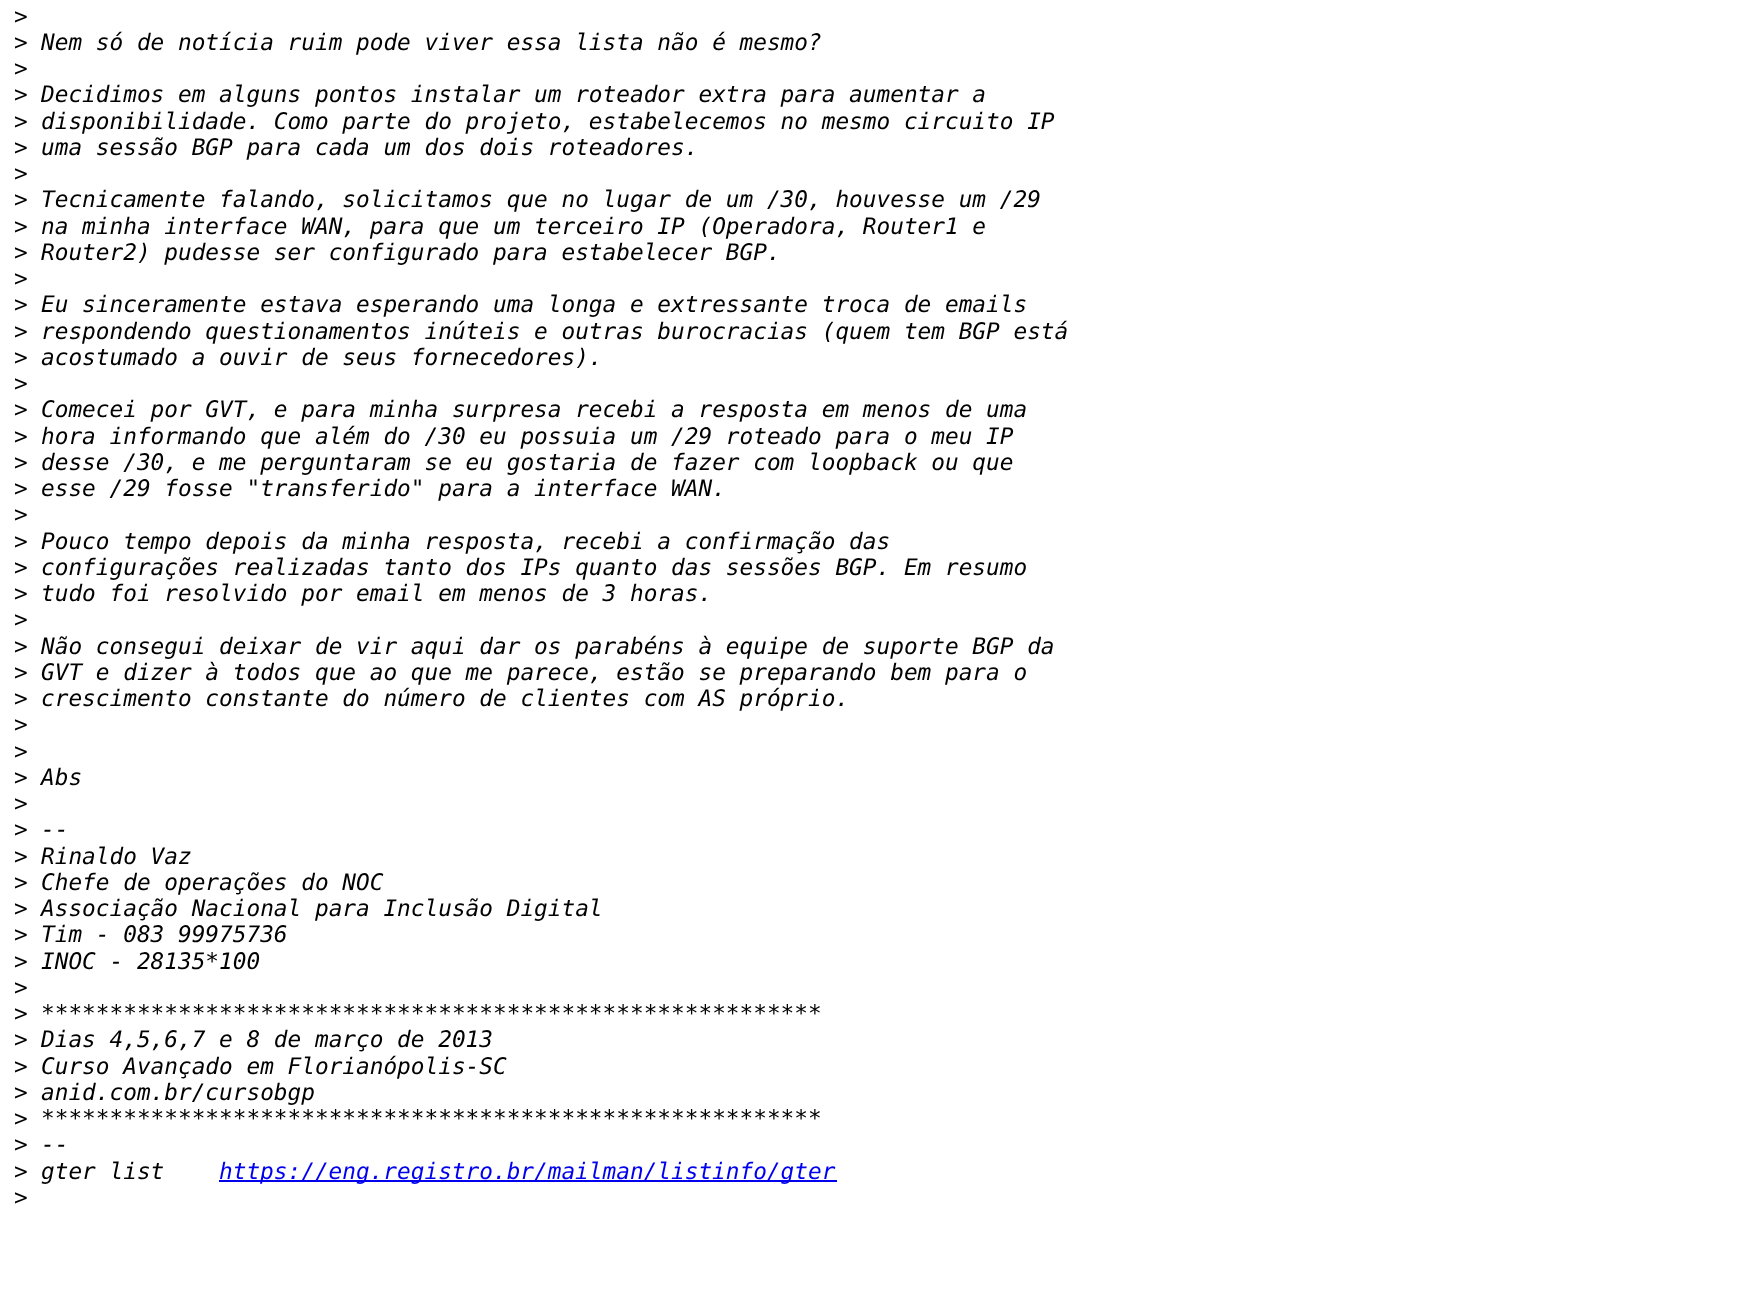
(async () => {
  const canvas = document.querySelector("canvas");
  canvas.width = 1747;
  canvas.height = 1303;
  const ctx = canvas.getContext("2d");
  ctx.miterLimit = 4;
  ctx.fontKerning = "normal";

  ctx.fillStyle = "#ffffff";
  ctx.fillRect(0, 0, 1747, 1303);
  ctx.fillStyle = "#0000ee";
  ctx.fillRect(219, 1180, 618, 2);
  ctx.font = "22.75px DejaVu Sans Mono";
  ctx.fillStyle = "#000000";
  ctx.fillText(">", 14, 24);
  ctx.fillText(">", 14, 50);
  ctx.font = "italic 22.75px DejaVu Sans Mono";
  ctx.fillText("Nem só de notícia ruim pode viver essa lista não é mesmo?", 41, 50);
  ctx.font = "22.75px DejaVu Sans Mono";
  ctx.fillText(">", 14, 76);
  ctx.fillText(">", 14, 102);
  ctx.font = "italic 22.75px DejaVu Sans Mono";
  ctx.fillText("Decidimos em alguns pontos instalar um roteador extra para aumentar a", 41, 102);
  ctx.font = "22.75px DejaVu Sans Mono";
  ctx.fillText(">", 14, 129);
  ctx.font = "italic 22.75px DejaVu Sans Mono";
  ctx.fillText("disponibilidade. Como parte do projeto, estabelecemos no mesmo circuito IP", 41, 129);
  ctx.font = "22.75px DejaVu Sans Mono";
  ctx.fillText(">", 14, 155);
  ctx.font = "italic 22.75px DejaVu Sans Mono";
  ctx.fillText("uma sessão BGP para cada um dos dois roteadores.", 41, 155);
  ctx.font = "22.75px DejaVu Sans Mono";
  ctx.fillText(">", 14, 181);
  ctx.fillText(">", 14, 207);
  ctx.font = "italic 22.75px DejaVu Sans Mono";
  ctx.fillText("Tecnicamente falando, solicitamos que no lugar de um /30, houvesse um /29", 41, 207);
  ctx.font = "22.75px DejaVu Sans Mono";
  ctx.fillText(">", 14, 234);
  ctx.font = "italic 22.75px DejaVu Sans Mono";
  ctx.fillText("na minha interface WAN, para que um terceiro IP (Operadora, Router1 e", 41, 234);
  ctx.font = "22.75px DejaVu Sans Mono";
  ctx.fillText(">", 14, 260);
  ctx.font = "italic 22.75px DejaVu Sans Mono";
  ctx.fillText("Router2) pudesse ser configurado para estabelecer BGP.", 41, 260);
  ctx.font = "22.75px DejaVu Sans Mono";
  ctx.fillText(">", 14, 286);
  ctx.fillText(">", 14, 312);
  ctx.font = "italic 22.75px DejaVu Sans Mono";
  ctx.fillText("Eu sinceramente estava esperando uma longa e extressante troca de emails", 41, 312);
  ctx.font = "22.75px DejaVu Sans Mono";
  ctx.fillText(">", 14, 339);
  ctx.font = "italic 22.75px DejaVu Sans Mono";
  ctx.fillText("respondendo questionamentos inúteis e outras burocracias (quem tem BGP está", 41, 339);
  ctx.font = "22.75px DejaVu Sans Mono";
  ctx.fillText(">", 14, 365);
  ctx.font = "italic 22.75px DejaVu Sans Mono";
  ctx.fillText("acostumado a ouvir de seus fornecedores).", 41, 365);
  ctx.font = "22.75px DejaVu Sans Mono";
  ctx.fillText(">", 14, 391);
  ctx.fillText(">", 14, 417);
  ctx.font = "italic 22.75px DejaVu Sans Mono";
  ctx.fillText("Comecei por GVT, e para minha surpresa recebi a resposta em menos de uma", 41, 417);
  ctx.font = "22.75px DejaVu Sans Mono";
  ctx.fillText(">", 14, 444);
  ctx.font = "italic 22.75px DejaVu Sans Mono";
  ctx.fillText("hora informando que além do /30 eu possuia um /29 roteado para o meu IP", 41, 444);
  ctx.font = "22.75px DejaVu Sans Mono";
  ctx.fillText(">", 14, 470);
  ctx.font = "italic 22.75px DejaVu Sans Mono";
  ctx.fillText("desse /30, e me perguntaram se eu gostaria de fazer com loopback ou que", 41, 470);
  ctx.font = "22.75px DejaVu Sans Mono";
  ctx.fillText(">", 14, 496);
  ctx.font = "italic 22.75px DejaVu Sans Mono";
  ctx.fillText("esse /29 fosse \"transferido\" para a interface WAN.", 41, 496);
  ctx.font = "22.75px DejaVu Sans Mono";
  ctx.fillText(">", 14, 522);
  ctx.fillText(">", 14, 549);
  ctx.font = "italic 22.75px DejaVu Sans Mono";
  ctx.fillText("Pouco tempo depois da minha resposta, recebi a confirmação das", 41, 549);
  ctx.font = "22.75px DejaVu Sans Mono";
  ctx.fillText(">", 14, 575);
  ctx.font = "italic 22.75px DejaVu Sans Mono";
  ctx.fillText("configurações realizadas tanto dos IPs quanto das sessões BGP. Em resumo", 41, 575);
  ctx.font = "22.75px DejaVu Sans Mono";
  ctx.fillText(">", 14, 601);
  ctx.font = "italic 22.75px DejaVu Sans Mono";
  ctx.fillText("tudo foi resolvido por email em menos de 3 horas.", 41, 601);
  ctx.font = "22.75px DejaVu Sans Mono";
  ctx.fillText(">", 14, 627);
  ctx.fillText(">", 14, 654);
  ctx.font = "italic 22.75px DejaVu Sans Mono";
  ctx.fillText("Não consegui deixar de vir aqui dar os parabéns à equipe de suporte BGP da", 41, 654);
  ctx.font = "22.75px DejaVu Sans Mono";
  ctx.fillText(">", 14, 680);
  ctx.font = "italic 22.75px DejaVu Sans Mono";
  ctx.fillText("GVT e dizer à todos que ao que me parece, estão se preparando bem para o", 41, 680);
  ctx.font = "22.75px DejaVu Sans Mono";
  ctx.fillText(">", 14, 706);
  ctx.font = "italic 22.75px DejaVu Sans Mono";
  ctx.fillText("crescimento constante do número de clientes com AS próprio.", 41, 706);
  ctx.font = "22.75px DejaVu Sans Mono";
  for (const [text, x, y] of [
    [">", 14, 732],
    [">", 14, 759],
    [">", 14, 785],
  ]) {
    ctx.fillText(text, x, y);
  }
  ctx.font = "italic 22.75px DejaVu Sans Mono";
  ctx.fillText("Abs", 41, 785);
  ctx.font = "22.75px DejaVu Sans Mono";
  ctx.fillText(">", 14, 811);
  ctx.fillText(">", 14, 837);
  ctx.font = "italic 22.75px DejaVu Sans Mono";
  ctx.fillText("--", 41, 837);
  ctx.font = "22.75px DejaVu Sans Mono";
  ctx.fillText(">", 14, 864);
  ctx.font = "italic 22.75px DejaVu Sans Mono";
  ctx.fillText("Rinaldo Vaz", 41, 864);
  ctx.font = "22.75px DejaVu Sans Mono";
  ctx.fillText(">", 14, 890);
  ctx.font = "italic 22.75px DejaVu Sans Mono";
  ctx.fillText("Chefe de operações do NOC", 41, 890);
  ctx.font = "22.75px DejaVu Sans Mono";
  ctx.fillText(">", 14, 916);
  ctx.font = "italic 22.75px DejaVu Sans Mono";
  ctx.fillText("Associação Nacional para Inclusão Digital", 41, 916);
  ctx.font = "22.75px DejaVu Sans Mono";
  ctx.fillText(">", 14, 942);
  ctx.font = "italic 22.75px DejaVu Sans Mono";
  ctx.fillText("Tim - 083 99975736", 41, 942);
  ctx.font = "22.75px DejaVu Sans Mono";
  ctx.fillText(">", 14, 969);
  ctx.font = "italic 22.75px DejaVu Sans Mono";
  ctx.fillText("INOC - 28135*100", 41, 969);
  ctx.font = "22.75px DejaVu Sans Mono";
  ctx.fillText(">", 14, 995);
  ctx.fillText(">", 14, 1021);
  ctx.font = "italic 22.75px DejaVu Sans Mono";
  ctx.fillText("*********************************************************", 41, 1021);
  ctx.font = "22.75px DejaVu Sans Mono";
  ctx.fillText(">", 14, 1047);
  ctx.font = "italic 22.75px DejaVu Sans Mono";
  ctx.fillText("Dias 4,5,6,7 e 8 de março de 2013", 41, 1047);
  ctx.font = "22.75px DejaVu Sans Mono";
  ctx.fillText(">", 14, 1074);
  ctx.font = "italic 22.75px DejaVu Sans Mono";
  ctx.fillText("Curso Avançado em Florianópolis-SC", 41, 1074);
  ctx.font = "22.75px DejaVu Sans Mono";
  ctx.fillText(">", 14, 1100);
  ctx.font = "italic 22.75px DejaVu Sans Mono";
  ctx.fillText("anid.com.br/cursobgp", 41, 1100);
  ctx.font = "22.75px DejaVu Sans Mono";
  ctx.fillText(">", 14, 1126);
  ctx.font = "italic 22.75px DejaVu Sans Mono";
  ctx.fillText("*********************************************************", 41, 1126);
  ctx.font = "22.75px DejaVu Sans Mono";
  ctx.fillText(">", 14, 1152);
  ctx.font = "italic 22.75px DejaVu Sans Mono";
  ctx.fillText("--", 41, 1152);
  ctx.font = "22.75px DejaVu Sans Mono";
  ctx.fillText(">", 14, 1179);
  ctx.font = "italic 22.75px DejaVu Sans Mono";
  ctx.fillText("gter list", 41, 1179);
  ctx.fillStyle = "#0000ee";
  ctx.fillText("https://eng.registro.br/mailman/listinfo/gter", 219, 1179);
  ctx.font = "22.75px DejaVu Sans Mono";
  ctx.fillStyle = "#000000";
  ctx.fillText(">", 14, 1205);
})();
